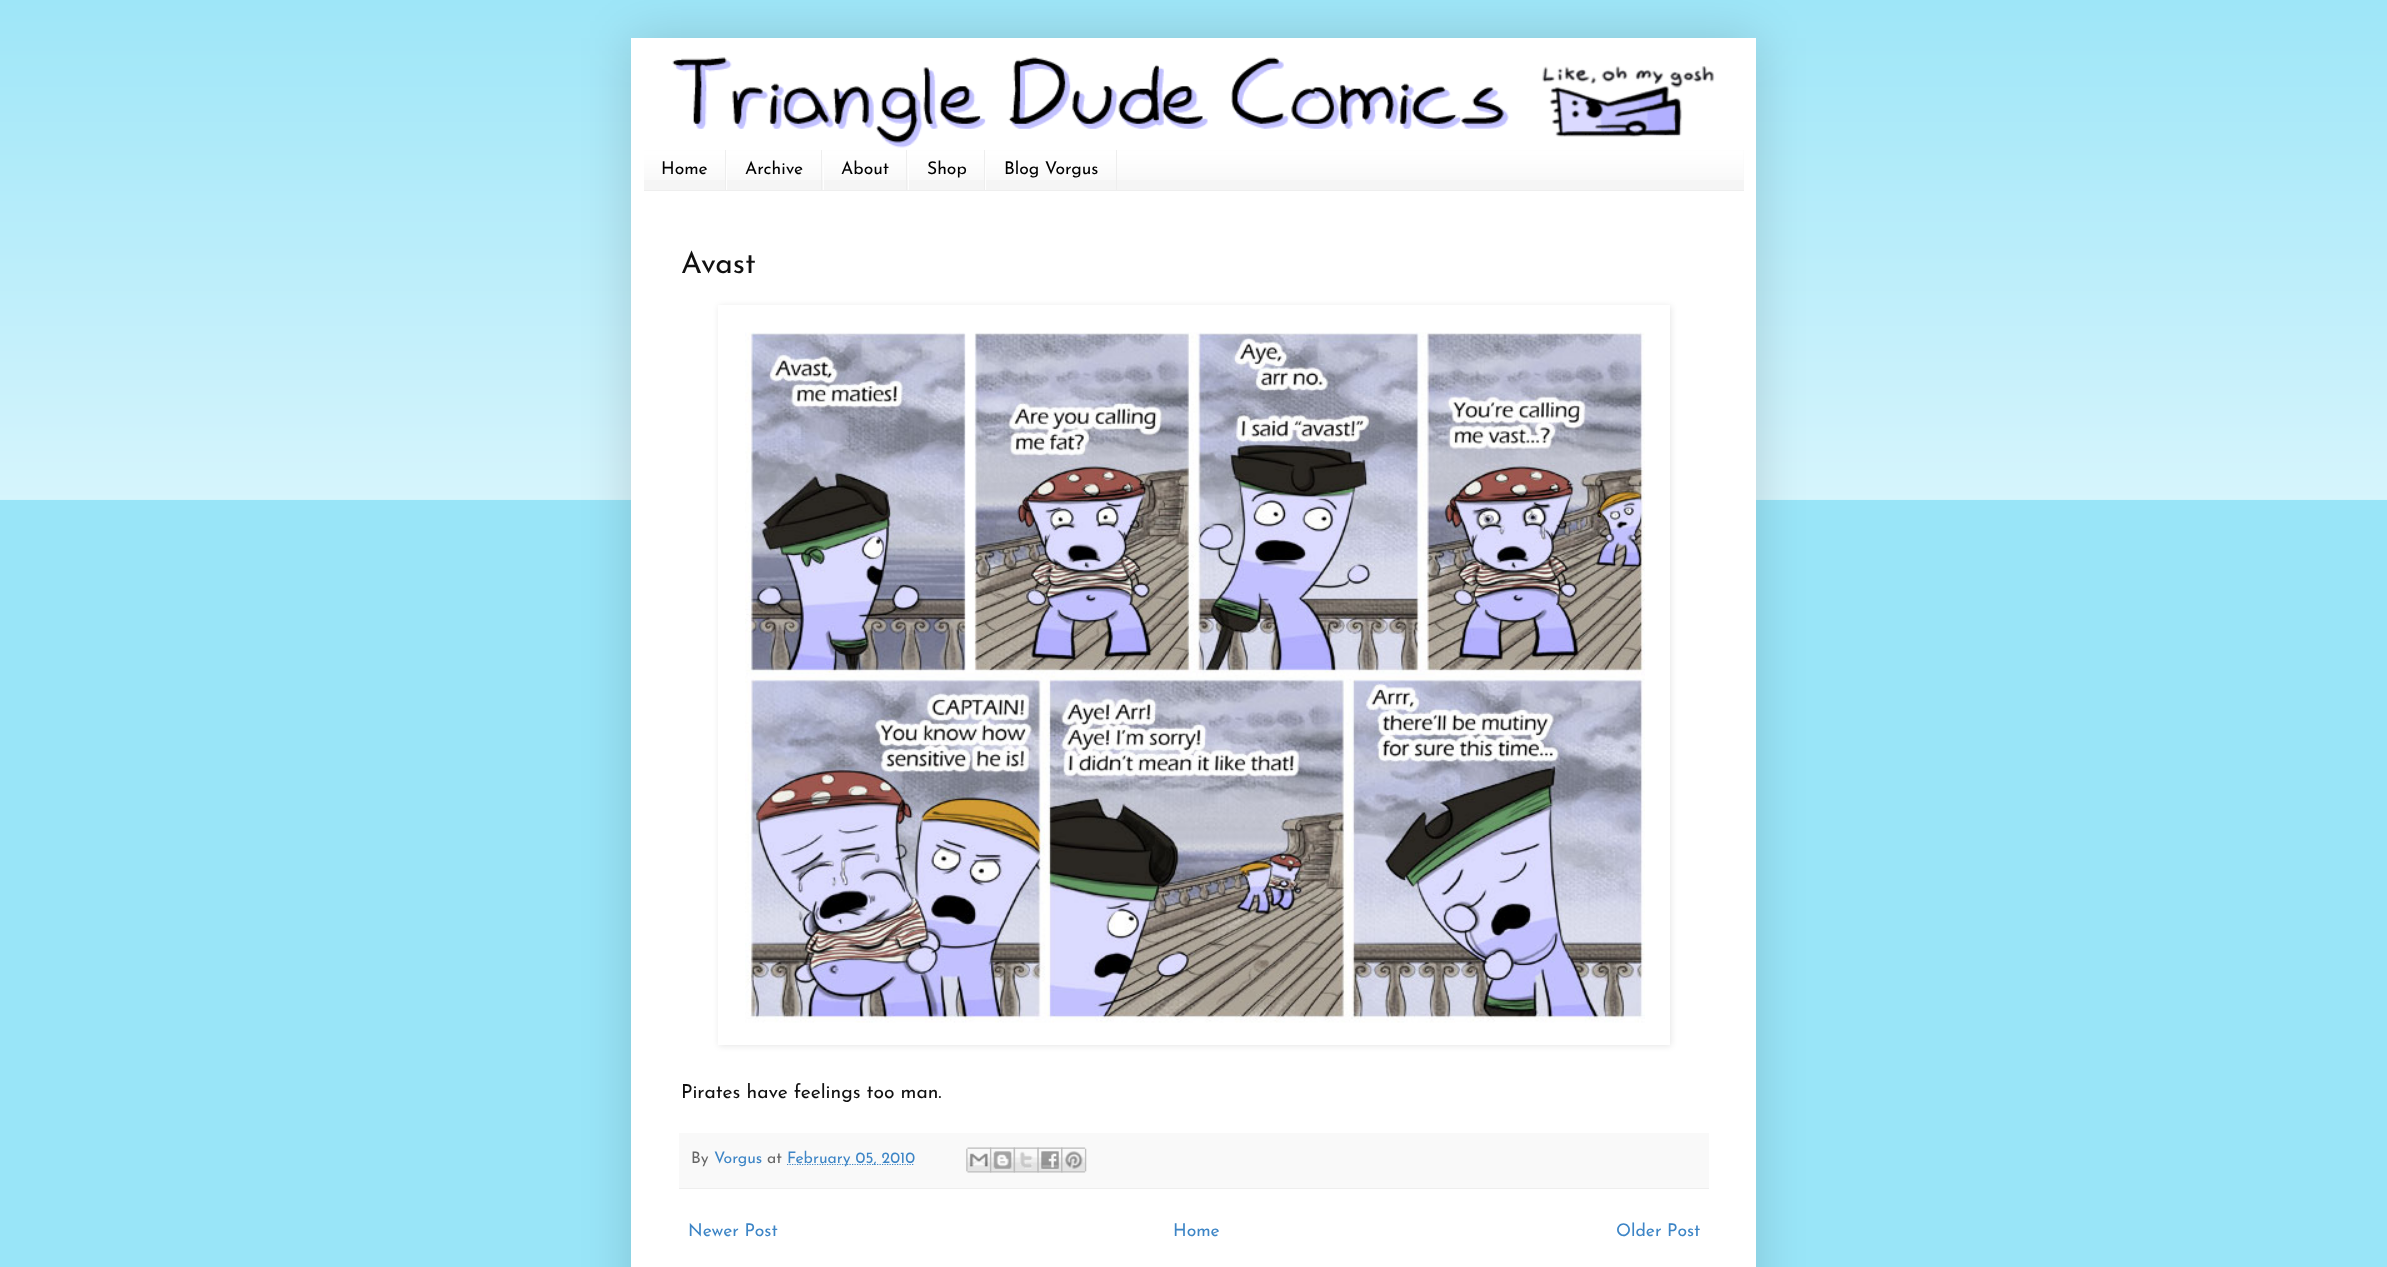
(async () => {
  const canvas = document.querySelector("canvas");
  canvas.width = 2387;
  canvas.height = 1267;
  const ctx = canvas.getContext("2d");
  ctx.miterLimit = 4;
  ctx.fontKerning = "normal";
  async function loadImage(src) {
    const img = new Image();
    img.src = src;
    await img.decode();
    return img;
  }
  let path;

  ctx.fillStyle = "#99e5f8";
  ctx.fillRect(0, 0, 2387, 1267);
  ctx.drawImage(await loadImage("img/1.png"), 0, 0, 2387, 500);
  ctx.fillStyle = "rgba(0, 0, 0, 0.15)";
  ctx.filter = "blur(25px)";
  ctx.beginPath();
  ctx.rect(631, 38, 1125, 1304);
  ctx.fill();
  ctx.filter = "none";
  ctx.fillStyle = "#ffffff";
  ctx.fillRect(631, 38, 1125, 1229);
  ctx.drawImage(await loadImage("img/2.png"), 672, 57, 1043, 91);
  ctx.fillStyle = "#f5f5f5";
  ctx.fillRect(644, 150, 1100, 40);
  ctx.drawImage(await loadImage("img/3.png"), 644, 150, 1100, 30);
  for (const [x, y, w, h, color] of [
    [644, 190, 1100, 1, "#eeeeee"],
    [725, 150, 1, 40, "#eeeeee"],
    [821, 150, 1, 40, "#eeeeee"],
    [726, 164, 1, 26, "#ffffff"],
    [906, 150, 1, 40, "#eeeeee"],
    [823, 164, 1, 26, "#ffffff"],
    [984, 150, 1, 40, "#eeeeee"],
    [908, 164, 1, 26, "#ffffff"],
    [1116, 150, 1, 40, "#eeeeee"],
    [985, 164, 1, 26, "#ffffff"],
  ]) {
    ctx.fillStyle = color;
    ctx.fillRect(x, y, w, h);
  }
  ctx.save();
  path = new Path2D("M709 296H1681V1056H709ZM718 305H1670V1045H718Z");
  ctx.clip(path, "evenodd");
  ctx.fillStyle = "rgba(0, 0, 0, 0.1)";
  ctx.filter = "blur(3px)";
  ctx.beginPath();
  ctx.rect(719, 306, 952, 740);
  ctx.fill();
  ctx.filter = "none";
  ctx.restore();
  ctx.drawImage(await loadImage("img/4.png"), 745, 332, 900, 691);
  ctx.fillStyle = "#f9f9f9";
  ctx.fillRect(679, 1133, 1030, 55);
  ctx.fillStyle = "#eeeeee";
  ctx.fillRect(679, 1188, 1030, 1);
  path = new Path2D("M787 1164.5H914.5");
  ctx.strokeStyle = "#3d85c6";
  ctx.lineWidth = 1.2;
  ctx.setLineDash([1.25, 1.25]);
  ctx.stroke(path);
  ctx.drawImage(await loadImage("img/5.png"), 966, 1147, 26, 26);
  ctx.drawImage(await loadImage("img/6.png"), 990, 1147, 25, 26);
  ctx.drawImage(await loadImage("img/7.png"), 1013, 1147, 26, 26);
  ctx.drawImage(await loadImage("img/8.png"), 1037, 1147, 26, 26);
  ctx.drawImage(await loadImage("img/9.png"), 1061, 1147, 26, 26);
  ctx.font = "100 17.5px Josefin Sans";
  ctx.fillStyle = "#000000";
  for (const [text, x, y] of [
    ["Home", 661, 174],
    ["Archive", 745, 174],
    ["About", 841, 174],
    ["Shop", 927, 174],
    ["Blog Vorgus", 1004, 174],
  ]) {
    ctx.fillText(text, x, y);
  }
  ctx.font = "100 30px Josefin Sans";
  ctx.fillStyle = "#111111";
  ctx.fillText("Avast", 681, 273);
  ctx.font = "100 19.25px Josefin Sans";
  ctx.fillText("Pirates have feelings too man.", 681, 1098);
  ctx.font = "100 15.75px Josefin Sans";
  ctx.fillStyle = "#666666";
  ctx.fillText("By", 691, 1163);
  ctx.fillStyle = "#3d85c6";
  ctx.fillText("Vorgus", 714, 1163);
  ctx.fillStyle = "#666666";
  ctx.fillText("at", 767, 1163);
  ctx.fillStyle = "#3d85c6";
  ctx.fillText("February 05, 2010", 787, 1163);
  ctx.font = "100 17.5px Josefin Sans";
  for (const [text, x, y] of [
    ["Newer Post", 688, 1236],
    ["Home", 1173, 1236],
    ["Older Post", 1616, 1236],
  ]) {
    ctx.fillText(text, x, y);
  }
})();
